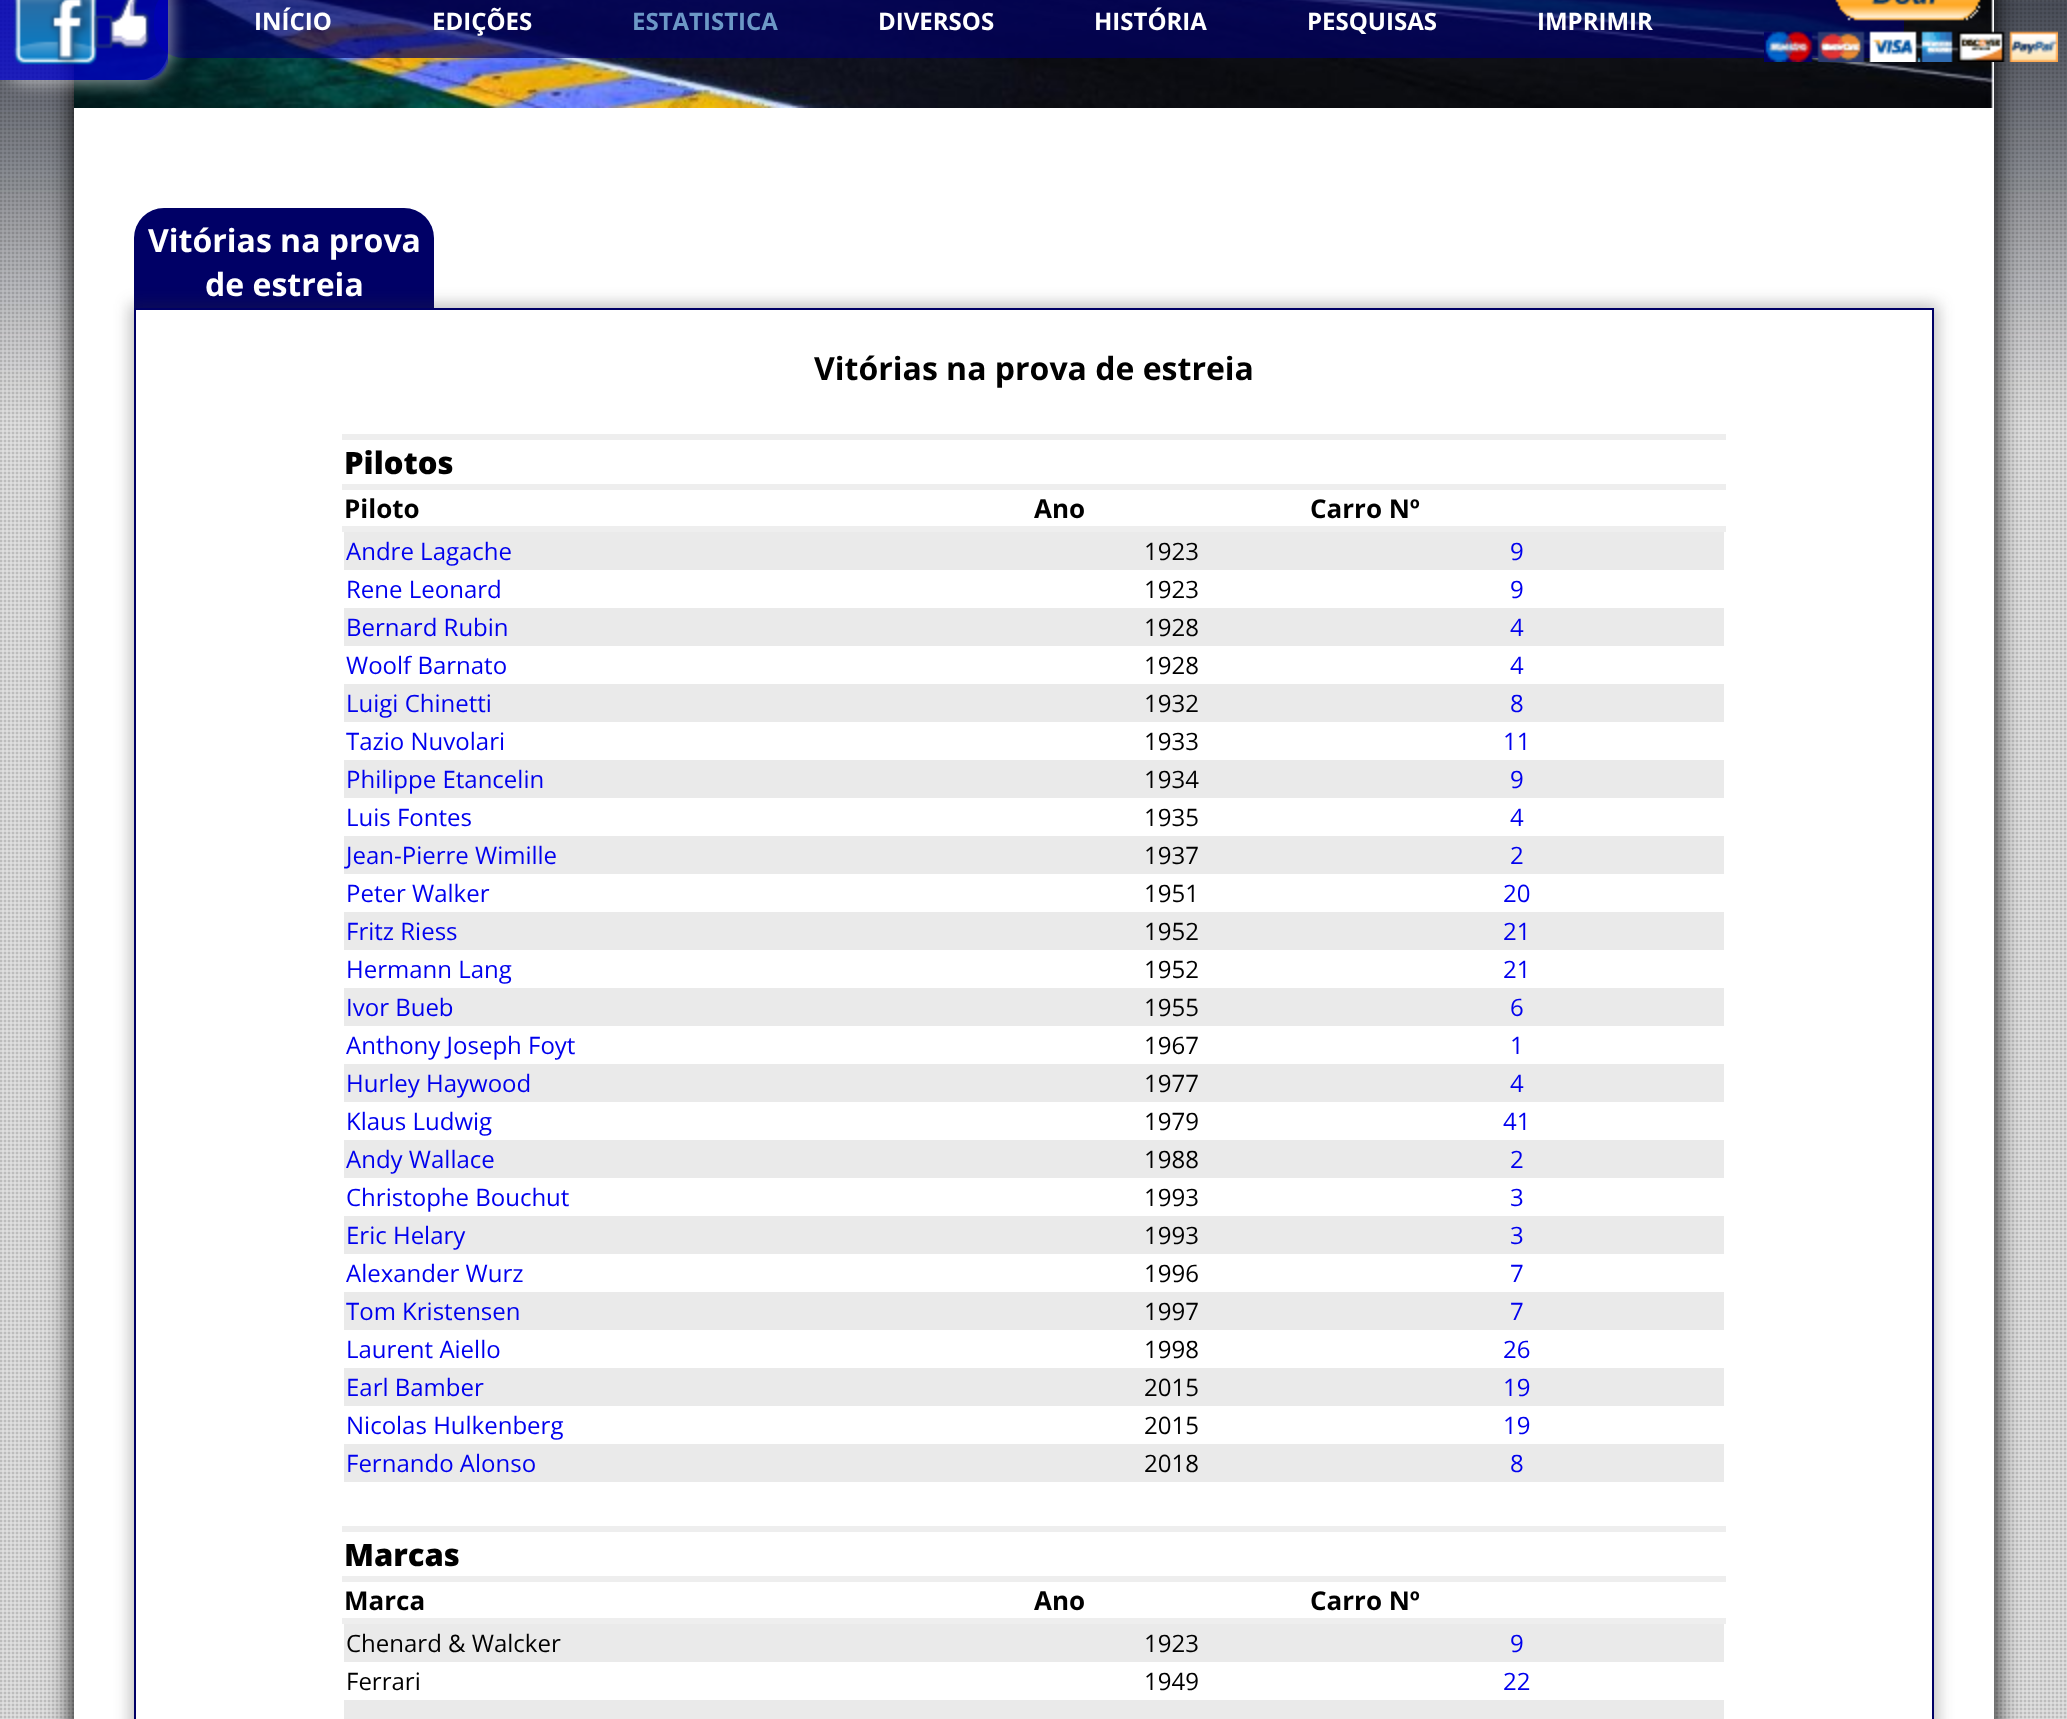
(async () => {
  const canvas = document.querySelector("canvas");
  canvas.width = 2067;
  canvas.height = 1719;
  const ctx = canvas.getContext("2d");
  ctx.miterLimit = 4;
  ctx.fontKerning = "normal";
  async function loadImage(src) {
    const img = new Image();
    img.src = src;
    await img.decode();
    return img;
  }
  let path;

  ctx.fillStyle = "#e3e3e3";
  ctx.fillRect(0, 0, 2067, 1719);
  ctx.drawImage(await loadImage("img/1.png"), 0, 0, 2067, 1719);
  ctx.fillStyle = "#000000";
  ctx.filter = "blur(12px)";
  ctx.beginPath();
  ctx.rect(74, -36, 1920, 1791);
  ctx.fill();
  ctx.filter = "none";
  ctx.fillStyle = "#ffffff";
  ctx.fillRect(74, 108, 1920, 1611);
  ctx.drawImage(await loadImage("img/3.png"), 74, 0, 1920, 108);
  ctx.fillStyle = "rgba(0, 0, 102, 0.7)";
  ctx.beginPath();
  ctx.roundRect(154, -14, 1750, 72, 30);
  ctx.fill();
  ctx.save();
  path = new Path2D("M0 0H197V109H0ZM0-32H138C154.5-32 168-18.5 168-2V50C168 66.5 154.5 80 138 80H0Z");
  ctx.clip(path, "evenodd");
  ctx.fillStyle = "rgba(255, 255, 255, 0.5)";
  ctx.filter = "blur(8px)";
  ctx.beginPath();
  ctx.roundRect(-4, -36, 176, 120, 34);
  ctx.fill();
  ctx.filter = "none";
  ctx.restore();
  ctx.drawImage(await loadImage("img/2.png"), 0, 0, 168, 80);
  ctx.fillStyle = "#000066";
  ctx.beginPath();
  ctx.roundRect(134, 208, 300, 100, [30, 30, 0, 0]);
  ctx.fill();
  ctx.save();
  path = new Path2D("M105 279H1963V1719H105ZM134 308H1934V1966H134Z");
  ctx.clip(path, "evenodd");
  ctx.fillStyle = "rgba(45, 45, 45, 0.3)";
  ctx.filter = "blur(8px)";
  ctx.beginPath();
  ctx.rect(130, 304, 1808, 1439);
  ctx.fill();
  ctx.filter = "none";
  ctx.restore();
  ctx.strokeStyle = "#000066";
  ctx.lineWidth = 2;
  ctx.strokeRect(135, 309, 1798, 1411);
  for (const [x, y, w, h, color] of [
    [342, 434, 1384, 6, "#eeeeee"],
    [342, 484, 1384, 6, "#eeeeee"],
    [342, 526, 1384, 6, "#eeeeee"],
    [344, 532, 1380, 38, "#eaeaea"],
    [344, 608, 1380, 38, "#eaeaea"],
    [344, 684, 1380, 38, "#eaeaea"],
    [344, 760, 1380, 38, "#eaeaea"],
    [344, 836, 1380, 38, "#eaeaea"],
    [344, 912, 1380, 38, "#eaeaea"],
    [344, 988, 1380, 38, "#eaeaea"],
    [344, 1064, 1380, 38, "#eaeaea"],
    [344, 1140, 1380, 38, "#eaeaea"],
    [344, 1216, 1380, 38, "#eaeaea"],
    [344, 1292, 1380, 38, "#eaeaea"],
    [344, 1368, 1380, 38, "#eaeaea"],
    [344, 1444, 1380, 38, "#eaeaea"],
    [342, 1526, 1384, 6, "#eeeeee"],
    [342, 1576, 1384, 6, "#eeeeee"],
    [342, 1618, 1384, 6, "#eeeeee"],
    [344, 1624, 1380, 38, "#eaeaea"],
    [344, 1700, 1380, 19, "#eaeaea"],
  ]) {
    ctx.fillStyle = color;
    ctx.fillRect(x, y, w, h);
  }
  ctx.drawImage(await loadImage("img/4.png"), 1764, 0, 294, 62);
  ctx.font = "bold 24px Open Sans";
  ctx.fillStyle = "#ffffff";
  ctx.fillText("INÍCIO", 254, 30);
  ctx.fillText("EDIÇÕES", 432, 30);
  ctx.fillStyle = "#6c98c6";
  ctx.fillText("ESTATISTICA", 632, 30);
  ctx.fillStyle = "#ffffff";
  for (const [text, x, y] of [
    ["DIVERSOS", 878, 30],
    ["HISTÓRIA", 1094, 30],
    ["PESQUISAS", 1307, 30],
    ["IMPRIMIR", 1537, 30],
  ]) {
    ctx.fillText(text, x, y);
  }
  ctx.font = "bold 32px Open Sans";
  ctx.fillText("Vitórias na prova", 148, 252);
  ctx.fillText("de estreia", 205, 296);
  ctx.fillStyle = "#000000";
  ctx.fillText("Vitórias na prova de estreia", 814, 380);
  ctx.font = "800 31px Open Sans";
  ctx.fillText("Pilotos", 344, 474);
  ctx.font = "bold 26px Open Sans";
  for (const [text, x, y] of [
    ["Piloto", 344, 518],
    ["Ano", 1034, 518],
    ["Carro Nº", 1310, 518],
  ]) {
    ctx.fillText(text, x, y);
  }
  ctx.font = "24px Open Sans";
  ctx.fillStyle = "#0000ee";
  ctx.fillText("Andre Lagache", 346, 560);
  ctx.fillStyle = "#000000";
  ctx.fillText("1923", 1144, 560);
  ctx.fillStyle = "#0000ee";
  ctx.fillText("9", 1510, 560);
  ctx.fillText("Rene Leonard", 346, 598);
  ctx.fillStyle = "#000000";
  ctx.fillText("1923", 1144, 598);
  ctx.fillStyle = "#0000ee";
  ctx.fillText("9", 1510, 598);
  ctx.fillText("Bernard Rubin", 346, 636);
  ctx.fillStyle = "#000000";
  ctx.fillText("1928", 1144, 636);
  ctx.fillStyle = "#0000ee";
  ctx.fillText("4", 1510, 636);
  ctx.fillText("Woolf Barnato", 346, 674);
  ctx.fillStyle = "#000000";
  ctx.fillText("1928", 1144, 674);
  ctx.fillStyle = "#0000ee";
  ctx.fillText("4", 1510, 674);
  ctx.fillText("Luigi Chinetti", 346, 712);
  ctx.fillStyle = "#000000";
  ctx.fillText("1932", 1144, 712);
  ctx.fillStyle = "#0000ee";
  ctx.fillText("8", 1510, 712);
  ctx.fillText("Tazio Nuvolari", 346, 750);
  ctx.fillStyle = "#000000";
  ctx.fillText("1933", 1144, 750);
  ctx.fillStyle = "#0000ee";
  ctx.fillText("11", 1503, 750);
  ctx.fillText("Philippe Etancelin", 346, 788);
  ctx.fillStyle = "#000000";
  ctx.fillText("1934", 1144, 788);
  ctx.fillStyle = "#0000ee";
  ctx.fillText("9", 1510, 788);
  ctx.fillText("Luis Fontes", 346, 826);
  ctx.fillStyle = "#000000";
  ctx.fillText("1935", 1144, 826);
  ctx.fillStyle = "#0000ee";
  ctx.fillText("4", 1510, 826);
  ctx.fillText("Jean-Pierre Wimille", 346, 864);
  ctx.fillStyle = "#000000";
  ctx.fillText("1937", 1144, 864);
  ctx.fillStyle = "#0000ee";
  ctx.fillText("2", 1510, 864);
  ctx.fillText("Peter Walker", 346, 902);
  ctx.fillStyle = "#000000";
  ctx.fillText("1951", 1144, 902);
  ctx.fillStyle = "#0000ee";
  ctx.fillText("20", 1503, 902);
  ctx.fillText("Fritz Riess", 346, 940);
  ctx.fillStyle = "#000000";
  ctx.fillText("1952", 1144, 940);
  ctx.fillStyle = "#0000ee";
  ctx.fillText("21", 1503, 940);
  ctx.fillText("Hermann Lang", 346, 978);
  ctx.fillStyle = "#000000";
  ctx.fillText("1952", 1144, 978);
  ctx.fillStyle = "#0000ee";
  ctx.fillText("21", 1503, 978);
  ctx.fillText("Ivor Bueb", 346, 1016);
  ctx.fillStyle = "#000000";
  ctx.fillText("1955", 1144, 1016);
  ctx.fillStyle = "#0000ee";
  ctx.fillText("6", 1510, 1016);
  ctx.fillText("Anthony Joseph Foyt", 346, 1054);
  ctx.fillStyle = "#000000";
  ctx.fillText("1967", 1144, 1054);
  ctx.fillStyle = "#0000ee";
  ctx.fillText("1", 1510, 1054);
  ctx.fillText("Hurley Haywood", 346, 1092);
  ctx.fillStyle = "#000000";
  ctx.fillText("1977", 1144, 1092);
  ctx.fillStyle = "#0000ee";
  ctx.fillText("4", 1510, 1092);
  ctx.fillText("Klaus Ludwig", 346, 1130);
  ctx.fillStyle = "#000000";
  ctx.fillText("1979", 1144, 1130);
  ctx.fillStyle = "#0000ee";
  ctx.fillText("41", 1503, 1130);
  ctx.fillText("Andy Wallace", 346, 1168);
  ctx.fillStyle = "#000000";
  ctx.fillText("1988", 1144, 1168);
  ctx.fillStyle = "#0000ee";
  ctx.fillText("2", 1510, 1168);
  ctx.fillText("Christophe Bouchut", 346, 1206);
  ctx.fillStyle = "#000000";
  ctx.fillText("1993", 1144, 1206);
  ctx.fillStyle = "#0000ee";
  ctx.fillText("3", 1510, 1206);
  ctx.fillText("Eric Helary", 346, 1244);
  ctx.fillStyle = "#000000";
  ctx.fillText("1993", 1144, 1244);
  ctx.fillStyle = "#0000ee";
  ctx.fillText("3", 1510, 1244);
  ctx.fillText("Alexander Wurz", 346, 1282);
  ctx.fillStyle = "#000000";
  ctx.fillText("1996", 1144, 1282);
  ctx.fillStyle = "#0000ee";
  ctx.fillText("7", 1510, 1282);
  ctx.fillText("Tom Kristensen", 346, 1320);
  ctx.fillStyle = "#000000";
  ctx.fillText("1997", 1144, 1320);
  ctx.fillStyle = "#0000ee";
  ctx.fillText("7", 1510, 1320);
  ctx.fillText("Laurent Aiello", 346, 1358);
  ctx.fillStyle = "#000000";
  ctx.fillText("1998", 1144, 1358);
  ctx.fillStyle = "#0000ee";
  ctx.fillText("26", 1503, 1358);
  ctx.fillText("Earl Bamber", 346, 1396);
  ctx.fillStyle = "#000000";
  ctx.fillText("2015", 1144, 1396);
  ctx.fillStyle = "#0000ee";
  ctx.fillText("19", 1503, 1396);
  ctx.fillText("Nicolas Hulkenberg", 346, 1434);
  ctx.fillStyle = "#000000";
  ctx.fillText("2015", 1144, 1434);
  ctx.fillStyle = "#0000ee";
  ctx.fillText("19", 1503, 1434);
  ctx.fillText("Fernando Alonso", 346, 1472);
  ctx.fillStyle = "#000000";
  ctx.fillText("2018", 1144, 1472);
  ctx.fillStyle = "#0000ee";
  ctx.fillText("8", 1510, 1472);
  ctx.font = "800 31px Open Sans";
  ctx.fillStyle = "#000000";
  ctx.fillText("Marcas", 344, 1566);
  ctx.font = "bold 26px Open Sans";
  for (const [text, x, y] of [
    ["Marca", 344, 1610],
    ["Ano", 1034, 1610],
    ["Carro Nº", 1310, 1610],
  ]) {
    ctx.fillText(text, x, y);
  }
  ctx.font = "24px Open Sans";
  ctx.fillText("Chenard & Walcker", 346, 1652);
  ctx.fillText("1923", 1144, 1652);
  ctx.fillStyle = "#0000ee";
  ctx.fillText("9", 1510, 1652);
  ctx.fillStyle = "#000000";
  ctx.fillText("Ferrari", 346, 1690);
  ctx.fillText("1949", 1144, 1690);
  ctx.fillStyle = "#0000ee";
  ctx.fillText("22", 1503, 1690);
})();
